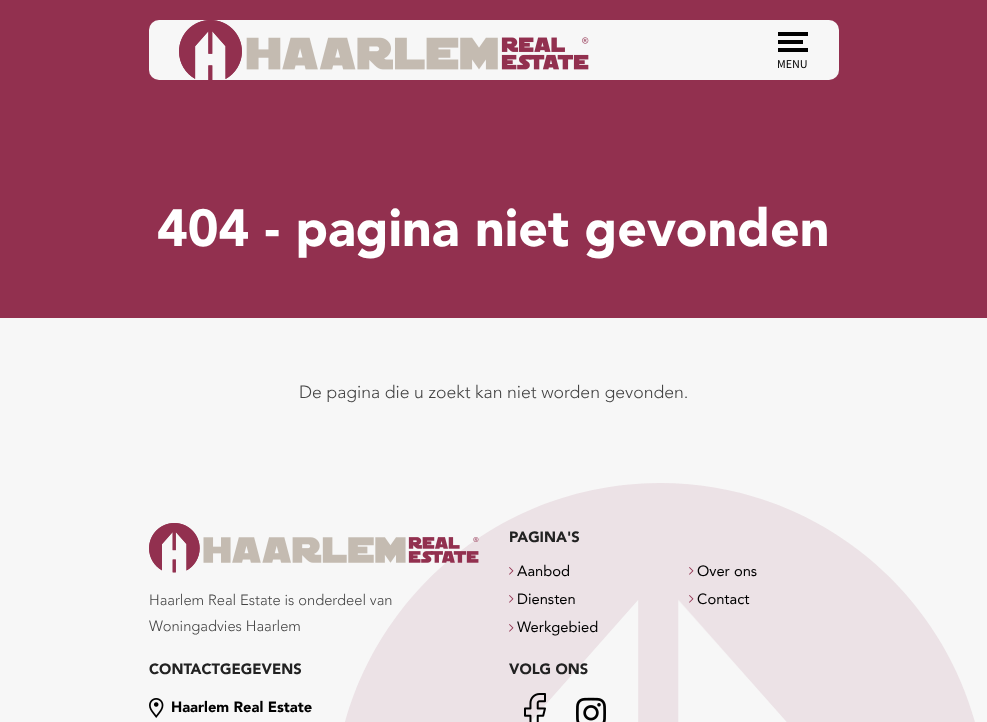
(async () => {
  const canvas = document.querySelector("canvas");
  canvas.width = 987;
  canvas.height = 722;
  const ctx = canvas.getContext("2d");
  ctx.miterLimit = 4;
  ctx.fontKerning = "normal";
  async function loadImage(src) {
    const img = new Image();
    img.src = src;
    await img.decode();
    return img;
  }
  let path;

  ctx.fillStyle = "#92304f";
  ctx.fillRect(0, 0, 987, 722);
  ctx.fillStyle = "#f7f7f7";
  ctx.beginPath();
  ctx.roundRect(149, 20, 690, 60, 10);
  ctx.fill();
  ctx.drawImage(await loadImage("img/1.png"), 179, 20, 410, 60);
  ctx.drawImage(await loadImage("img/2.png"), 778, 32, 30, 37);
  ctx.fillRect(0, 318, 987, 404);
  ctx.fillStyle = "#f2edef";
  path = new Path2D("M639 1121H679V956H639ZM333 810C333 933 400 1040 500 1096V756L638 600V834H678V600L817 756V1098C918 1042 987 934 987 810C987 630 841 483 660 483C479 483 333 630 333 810Z");
  ctx.fill(path);
  ctx.drawImage(await loadImage("img/3.png"), 345, 483, 630, 239);
  ctx.drawImage(await loadImage("img/4.png"), 149, 523, 330, 50);
  ctx.drawImage(await loadImage("img/5.png"), 509, 567, 5, 8);
  ctx.drawImage(await loadImage("img/5.png"), 509, 595, 5, 8);
  ctx.drawImage(await loadImage("img/5.png"), 509, 624, 5, 8);
  ctx.drawImage(await loadImage("img/5.png"), 689, 567, 5, 8);
  ctx.drawImage(await loadImage("img/5.png"), 689, 595, 5, 8);
  ctx.drawImage(await loadImage("img/6.png"), 149, 698, 15, 20);
  ctx.drawImage(await loadImage("img/7.png"), 524, 693, 22, 29);
  ctx.drawImage(await loadImage("img/8.png"), 576, 697, 30, 25);
  ctx.font = "900 51.9px Avenir";
  ctx.fillStyle = "#ffffff";
  ctx.fillText("404 - pagina niet gevonden", 157, 246);
  ctx.font = "300 17.6px Avenir";
  ctx.fillStyle = "#444444";
  ctx.fillText("De pagina die u zoekt kan niet worden gevonden.", 299, 398);
  ctx.font = "300 14.75px Avenir";
  ctx.fillText("Haarlem Real Estate is onderdeel van", 149, 605);
  ctx.fillText("Woningadvies Haarlem", 149, 631);
  ctx.font = "900 14.75px Avenir";
  ctx.fillStyle = "#222222";
  ctx.fillText("PAGINA'S", 509, 542);
  ctx.font = "14.75px Avenir";
  ctx.fillStyle = "#000000";
  for (const [text, x, y] of [
    ["Aanbod", 517, 576],
    ["Diensten", 517, 604],
    ["Werkgebied", 517, 632],
    ["Over ons", 697, 576],
    ["Contact", 697, 604],
  ]) {
    ctx.fillText(text, x, y);
  }
  ctx.font = "900 14.75px Avenir";
  ctx.fillStyle = "#222222";
  ctx.fillText("CONTACTGEGEVENS", 149, 674);
  ctx.fillStyle = "#000000";
  ctx.fillText("Haarlem Real Estate", 171, 712);
  ctx.fillStyle = "#222222";
  ctx.fillText("VOLG ONS", 509, 674);
})();
